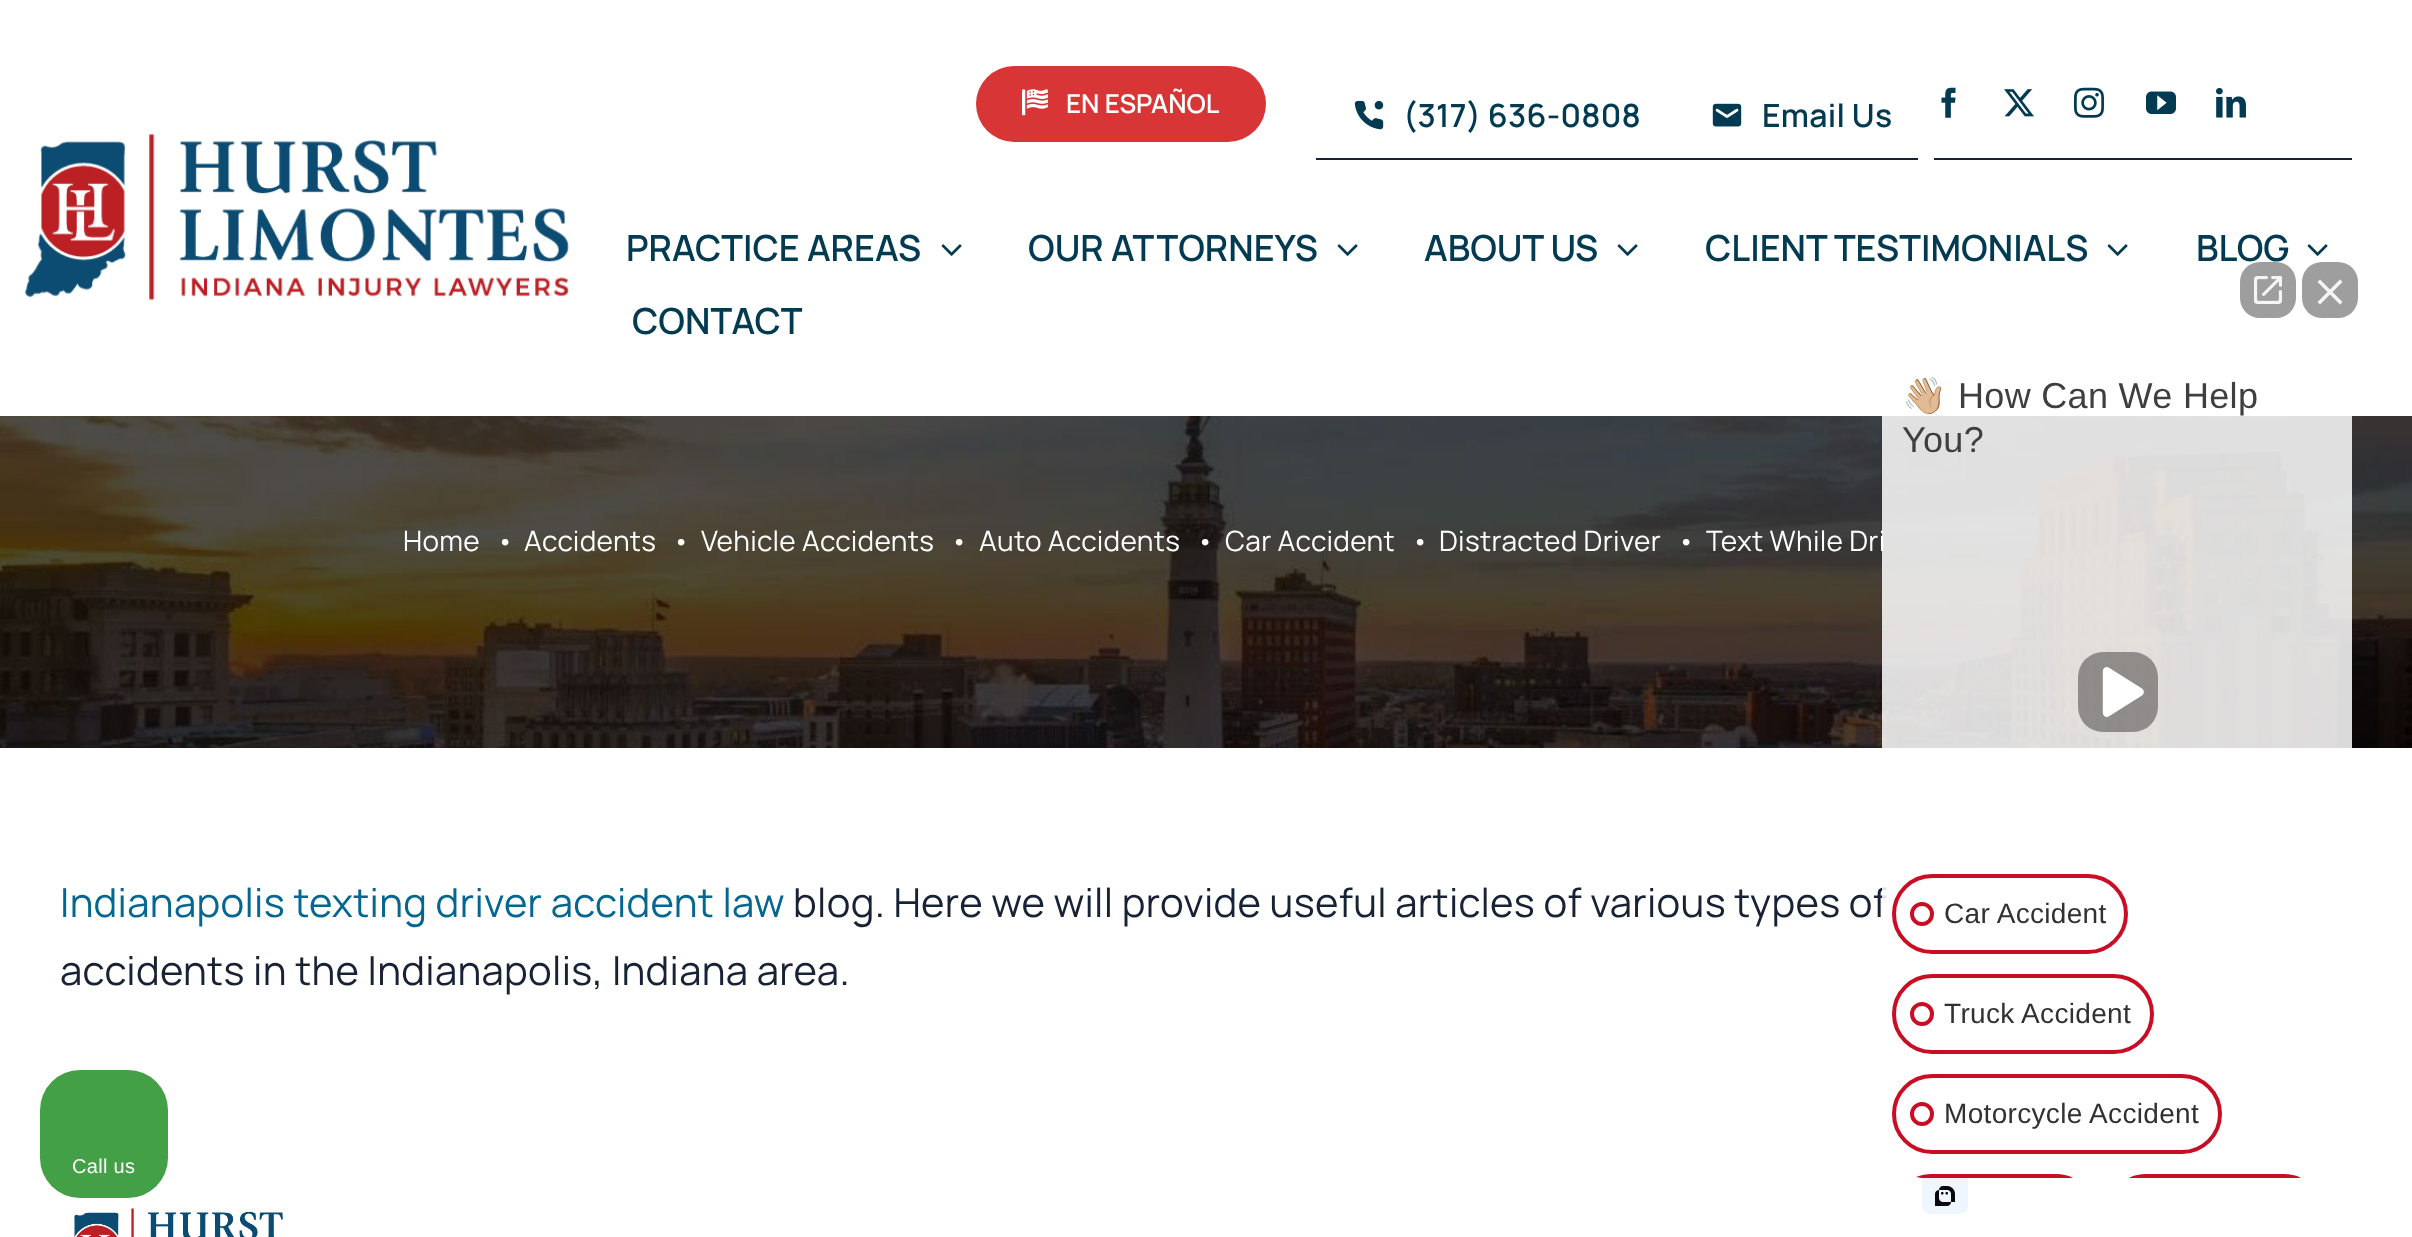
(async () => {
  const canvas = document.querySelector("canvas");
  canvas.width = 2412;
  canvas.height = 1237;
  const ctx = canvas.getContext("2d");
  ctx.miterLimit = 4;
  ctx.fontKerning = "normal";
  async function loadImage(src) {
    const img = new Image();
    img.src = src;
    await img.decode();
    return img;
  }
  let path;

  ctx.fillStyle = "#ffffff";
  ctx.fillRect(0, 0, 2412, 1237);
  ctx.drawImage(await loadImage("img/1.png"), 25, 134, 544, 167);
  ctx.fillStyle = "#d83636";
  ctx.beginPath();
  ctx.roundRect(976, 66, 290, 76, 38);
  ctx.fill();
  ctx.drawImage(await loadImage("img/2.png"), 1022, 89, 26, 27);
  ctx.fillStyle = "#182235";
  ctx.fillRect(1316, 158, 602, 2);
  ctx.drawImage(await loadImage("img/3.png"), 1354, 100, 30, 30);
  ctx.drawImage(await loadImage("img/4.png"), 1712, 103, 30, 24);
  ctx.fillRect(1934, 158, 418, 2);
  ctx.drawImage(await loadImage("img/5.png"), 1941, 87, 15, 31);
  ctx.drawImage(await loadImage("img/6.png"), 2004, 89, 30, 28);
  ctx.drawImage(await loadImage("img/7.png"), 2074, 87, 30, 31);
  ctx.drawImage(await loadImage("img/8.png"), 2146, 91, 30, 23);
  ctx.drawImage(await loadImage("img/9.png"), 2216, 88, 30, 30);
  ctx.drawImage(await loadImage("img/10.png"), 941, 244, 21, 12);
  ctx.drawImage(await loadImage("img/10.png"), 1337, 244, 21, 12);
  ctx.drawImage(await loadImage("img/10.png"), 1617, 244, 21, 12);
  ctx.drawImage(await loadImage("img/10.png"), 2107, 244, 21, 12);
  ctx.drawImage(await loadImage("img/10.png"), 2307, 244, 21, 12);
  ctx.drawImage(await loadImage("img/11.png"), 0, 416, 2412, 332);
  ctx.drawImage(await loadImage("img/12.png"), 74, 1208, 209, 29);
  ctx.fillStyle = "#9e9e9e";
  ctx.beginPath();
  ctx.roundRect(2240, 262, 56, 56, 20);
  ctx.fill();
  ctx.drawImage(await loadImage("img/13.png"), 2254, 276, 28, 28);
  ctx.beginPath();
  ctx.roundRect(2302, 262, 56, 56, 20);
  ctx.fill();
  ctx.fillStyle = "#f5f5f5";
  path = new Path2D("M2317.5 282L2320 279.5L2342.5 302L2340 304.5Z");
  ctx.fill(path);
  path = new Path2D("M2340 279.5L2342.5 282L2320 304.5L2317.5 302Z");
  ctx.fill(path);
  ctx.drawImage(await loadImage("img/15.png"), 1922, 1178, 46, 36);
  ctx.fillStyle = "#43a047";
  ctx.beginPath();
  ctx.roundRect(40, 1070, 128, 128, 40);
  ctx.fill();
  ctx.font = "600 26px Manrope";
  ctx.fillStyle = "#ffffff";
  ctx.fillText("EN ESPAÑOL", 1066, 113);
  ctx.letterSpacing = "0.25px";
  ctx.font = "600 32px Manrope";
  ctx.fillStyle = "#023a51";
  ctx.fillText("(317) 636-0808", 1403, 127);
  ctx.fillText("Email Us", 1762, 127);
  ctx.letterSpacing = "0px";
  ctx.font = "600 36px Manrope";
  for (const [text, x, y] of [
    ["PRACTICE AREAS", 626, 261],
    ["OUR ATTORNEYS", 1028, 261],
    ["ABOUT US", 1424, 261],
    ["CLIENT TESTIMONIALS", 1705, 261],
    ["BLOG", 2196, 261],
    ["CONTACT", 632, 334],
  ]) {
    ctx.fillText(text, x, y);
  }
  ctx.letterSpacing = "0.32px";
  ctx.font = "28px Manrope";
  ctx.fillStyle = "#ffffff";
  for (const [text, x, y] of [
    ["Home", 403, 551],
    ["•", 496, 551],
    ["Accidents", 524, 551],
    ["•", 672, 551],
    ["Vehicle Accidents", 701, 551],
    ["•", 950, 551],
    ["Auto Accidents", 979, 551],
    ["•", 1196, 551],
    ["Car Accident", 1225, 551],
    ["•", 1411, 551],
    ["Distracted Driver", 1439, 551],
    ["•", 1677, 551],
    ["Text While Dri", 1706, 551],
  ]) {
    ctx.fillText(text, x, y);
  }
  ctx.font = "40px Manrope";
  ctx.fillStyle = "#046791";
  ctx.fillText("Indianapolis texting driver accident law", 60, 917);
  ctx.fillStyle = "#182235";
  ctx.fillText("blog. Here we will provide useful articles of various types of", 793, 917);
  ctx.fillText("accidents in the Indianapolis, Indiana area.", 60, 985);
  ctx.fillStyle = "rgba(255, 255, 255, 0.85)";
  ctx.beginPath();
  ctx.roundRect(1882, 344, 470, 834, 44);
  ctx.fill();
  ctx.font = "36px Noto Color Emoji";
  ctx.fillStyle = "#3f3f3f";
  ctx.fillText("👋🏼", 1902, 408);
  ctx.font = "36px Liberation Sans";
  ctx.fillText("How Can We Help", 1958, 408);
  ctx.fillText("You?", 1902, 452);
  ctx.drawImage(await loadImage("img/14.png"), 2078, 652, 80, 80);
  ctx.beginPath();
  ctx.roundRect(1894, 876, 232, 76, 38);
  ctx.strokeStyle = "#c90d24";
  ctx.lineWidth = 4;
  ctx.stroke();
  ctx.beginPath();
  ctx.arc(1922, 914, 10, 0, Math.PI * 2);
  ctx.stroke();
  ctx.font = "28px Liberation Sans";
  ctx.fillStyle = "#313131";
  ctx.fillText("Car Accident", 1944, 923);
  ctx.beginPath();
  ctx.roundRect(1894, 976, 258, 76, 38);
  ctx.stroke();
  ctx.beginPath();
  ctx.arc(1922, 1014, 10, 0, Math.PI * 2);
  ctx.stroke();
  ctx.fillText("Truck Accident", 1944, 1023);
  ctx.beginPath();
  ctx.roundRect(1894, 1076, 326, 76, 38);
  ctx.stroke();
  ctx.beginPath();
  ctx.arc(1922, 1114, 10, 0, Math.PI * 2);
  ctx.stroke();
  ctx.fillText("Motorcycle Accident", 1944, 1123);
  ctx.fillStyle = "#c90d24";
  path = new Path2D("M1932 1174C1926 1174 1921 1175 1916 1177L1922 1178H2073C2068 1175 2062 1174 2056 1174Z");
  ctx.fill(path);
  path = new Path2D("M2146 1174C2140 1174 2134 1175 2129 1178H2301C2296 1175 2290 1174 2284 1174Z");
  ctx.fill(path);
  ctx.font = "20px Liberation Sans";
  ctx.fillStyle = "#ffffff";
  ctx.fillText("Call us", 72, 1173);
})();
